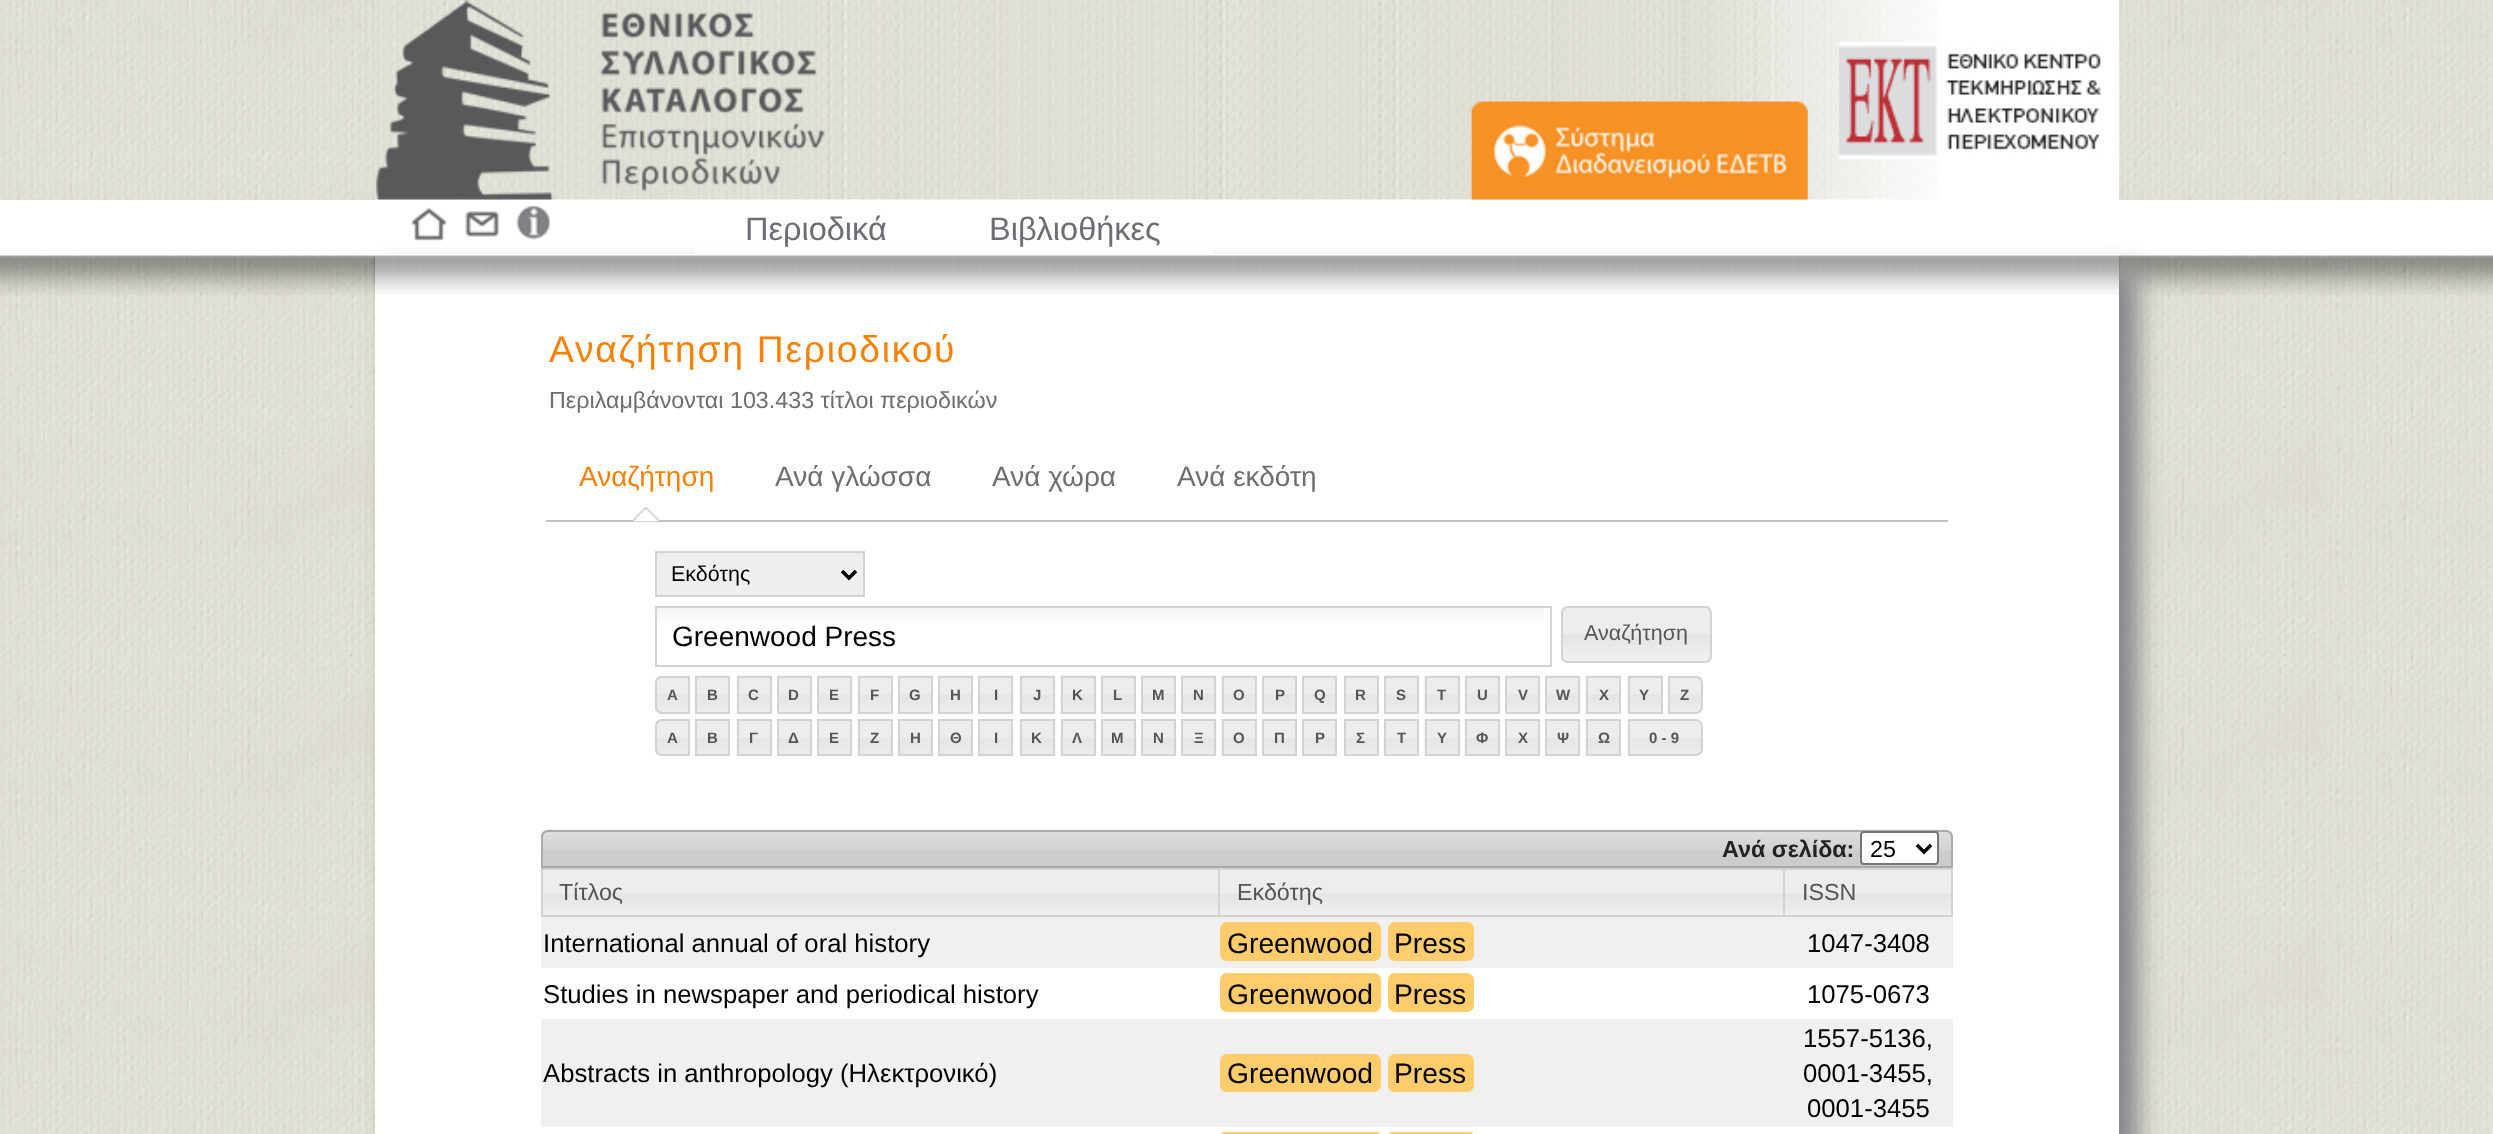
(async () => {
  const canvas = document.querySelector("canvas");
  canvas.width = 2493;
  canvas.height = 1134;
  const ctx = canvas.getContext("2d");
  ctx.miterLimit = 4;
  ctx.fontKerning = "normal";
  async function loadImage(src) {
    const img = new Image();
    img.src = src;
    await img.decode();
    return img;
  }
  let path;

  ctx.fillStyle = "#ffffff";
  ctx.fillRect(0, 0, 2493, 1134);
  ctx.drawImage(await loadImage("img/1.png"), 0, 0, 2493, 200);
  ctx.fillRect(375, 0, 1744, 200);
  ctx.drawImage(await loadImage("img/2.png"), 374, 0, 1565, 200);
  ctx.drawImage(await loadImage("img/3.png"), 375, 0, 450, 200);
  ctx.drawImage(await loadImage("img/4.png"), 1839, 42, 281, 118);
  ctx.drawImage(await loadImage("img/5.png"), 1471, 101, 337, 99);
  ctx.drawImage(await loadImage("img/9.png"), 0, 253, 2493, 881);
  ctx.drawImage(await loadImage("img/10.png"), 0, 254, 2493, 41);
  ctx.fillStyle = "#818286";
  ctx.filter = "blur(13px)";
  ctx.beginPath();
  ctx.rect(392, 271, 1745, 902);
  ctx.fill();
  ctx.filter = "none";
  ctx.drawImage(await loadImage("img/6.png"), 411, 207, 36, 34);
  ctx.drawImage(await loadImage("img/7.png"), 465, 211, 35, 26);
  ctx.drawImage(await loadImage("img/8.png"), 516, 205, 34, 35);
  ctx.fillStyle = "#ffffff";
  ctx.fillRect(375, 255, 1744, 879);
  ctx.drawImage(await loadImage("img/11.png"), 374, 253, 1746, 42);
  ctx.fillRect(695, 245, 518, 9);
  ctx.fillStyle = "#c0c0c0";
  ctx.fillRect(546, 520, 1402, 2);
  ctx.drawImage(await loadImage("img/12.png"), 631, 507, 29, 15);
  ctx.fillStyle = "#efefef";
  ctx.beginPath();
  ctx.rect(656, 552, 208, 44);
  ctx.fill();
  ctx.strokeStyle = "#d0d4d7";
  ctx.lineWidth = 2;
  ctx.stroke();
  path = new Path2D("M842 571L849 578L856 571");
  ctx.strokeStyle = "#000000";
  ctx.lineWidth = 3.5;
  ctx.stroke(path);
  ctx.drawImage(await loadImage("img/13.png"), 654, 605, 890, 15);
  ctx.strokeStyle = "#d0d4d7";
  ctx.lineWidth = 2;
  ctx.strokeRect(656, 607, 895, 59);
  ctx.drawImage(await loadImage("img/14.png"), 1561, 605, 150, 58);
  ctx.beginPath();
  ctx.roundRect(1562, 607, 149, 55, 6);
  ctx.strokeStyle = "#d3d3d3";
  ctx.stroke();
  ctx.drawImage(await loadImage("img/15.png"), 654, 675, 35, 39);
  ctx.beginPath();
  ctx.roundRect(656, 677, 33, 36, [6, 0, 0, 6]);
  ctx.stroke();
  ctx.drawImage(await loadImage("img/16.png"), 694, 675, 36, 39);
  ctx.strokeRect(696, 677, 33, 36);
  ctx.drawImage(await loadImage("img/16.png"), 736, 675, 36, 39);
  ctx.strokeRect(738, 677, 33, 36);
  ctx.drawImage(await loadImage("img/17.png"), 777, 675, 35, 37);
  ctx.strokeRect(778, 677, 33, 36);
  ctx.drawImage(await loadImage("img/18.png"), 817, 675, 36, 39);
  ctx.strokeRect(818, 677, 33, 36);
  ctx.drawImage(await loadImage("img/19.png"), 857, 675, 36, 39);
  ctx.strokeRect(859, 677, 33, 36);
  ctx.drawImage(await loadImage("img/16.png"), 897, 675, 36, 39);
  ctx.strokeRect(899, 677, 33, 36);
  ctx.drawImage(await loadImage("img/17.png"), 938, 675, 35, 37);
  ctx.strokeRect(939, 677, 33, 36);
  ctx.drawImage(await loadImage("img/18.png"), 978, 675, 36, 39);
  ctx.strokeRect(979, 677, 33, 36);
  ctx.drawImage(await loadImage("img/18.png"), 1020, 675, 36, 39);
  ctx.strokeRect(1021, 677, 33, 36);
  ctx.drawImage(await loadImage("img/19.png"), 1060, 675, 36, 39);
  ctx.strokeRect(1062, 677, 33, 36);
  ctx.drawImage(await loadImage("img/16.png"), 1100, 675, 36, 39);
  ctx.strokeRect(1102, 677, 33, 36);
  ctx.drawImage(await loadImage("img/17.png"), 1141, 675, 35, 37);
  ctx.strokeRect(1142, 677, 33, 36);
  ctx.drawImage(await loadImage("img/18.png"), 1181, 675, 36, 39);
  ctx.strokeRect(1182, 677, 33, 36);
  ctx.drawImage(await loadImage("img/19.png"), 1221, 675, 36, 39);
  ctx.strokeRect(1223, 677, 33, 36);
  ctx.drawImage(await loadImage("img/16.png"), 1261, 675, 36, 39);
  ctx.strokeRect(1263, 677, 33, 36);
  ctx.drawImage(await loadImage("img/17.png"), 1302, 675, 35, 37);
  ctx.strokeRect(1303, 677, 33, 36);
  ctx.drawImage(await loadImage("img/17.png"), 1344, 675, 35, 37);
  ctx.strokeRect(1345, 677, 33, 36);
  ctx.drawImage(await loadImage("img/18.png"), 1384, 675, 36, 39);
  ctx.strokeRect(1385, 677, 33, 36);
  ctx.drawImage(await loadImage("img/19.png"), 1424, 675, 36, 39);
  ctx.strokeRect(1426, 677, 33, 36);
  ctx.drawImage(await loadImage("img/16.png"), 1464, 675, 36, 39);
  ctx.strokeRect(1466, 677, 33, 36);
  ctx.drawImage(await loadImage("img/17.png"), 1505, 675, 35, 37);
  ctx.strokeRect(1506, 677, 33, 36);
  ctx.drawImage(await loadImage("img/18.png"), 1545, 675, 36, 39);
  ctx.strokeRect(1546, 677, 33, 36);
  ctx.drawImage(await loadImage("img/19.png"), 1585, 675, 36, 39);
  ctx.strokeRect(1587, 677, 33, 36);
  ctx.drawImage(await loadImage("img/19.png"), 1627, 675, 36, 39);
  ctx.strokeRect(1629, 677, 33, 36);
  ctx.drawImage(await loadImage("img/20.png"), 1668, 675, 34, 39);
  ctx.beginPath();
  ctx.roundRect(1669, 677, 33, 36, [0, 6, 6, 0]);
  ctx.stroke();
  ctx.drawImage(await loadImage("img/21.png"), 654, 720, 34, 36);
  ctx.beginPath();
  ctx.roundRect(656, 720, 33, 35, [6, 0, 0, 6]);
  ctx.stroke();
  ctx.drawImage(await loadImage("img/22.png"), 694, 719, 34, 37);
  ctx.strokeRect(696, 720, 33, 35);
  ctx.drawImage(await loadImage("img/22.png"), 736, 719, 34, 37);
  ctx.strokeRect(738, 720, 33, 35);
  ctx.drawImage(await loadImage("img/23.png"), 779, 721, 31, 33);
  ctx.strokeRect(778, 720, 33, 35);
  ctx.drawImage(await loadImage("img/24.png"), 819, 719, 34, 37);
  ctx.strokeRect(818, 720, 33, 35);
  ctx.drawImage(await loadImage("img/25.png"), 857, 719, 34, 37);
  ctx.strokeRect(859, 720, 33, 35);
  ctx.drawImage(await loadImage("img/22.png"), 897, 719, 34, 37);
  ctx.strokeRect(899, 720, 33, 35);
  ctx.drawImage(await loadImage("img/23.png"), 940, 721, 31, 33);
  ctx.strokeRect(939, 720, 33, 35);
  ctx.drawImage(await loadImage("img/24.png"), 980, 719, 34, 37);
  ctx.strokeRect(979, 720, 33, 35);
  ctx.drawImage(await loadImage("img/24.png"), 1022, 719, 34, 37);
  ctx.strokeRect(1021, 720, 33, 35);
  ctx.drawImage(await loadImage("img/25.png"), 1060, 719, 34, 37);
  ctx.strokeRect(1062, 720, 33, 35);
  ctx.drawImage(await loadImage("img/22.png"), 1100, 719, 34, 37);
  ctx.strokeRect(1102, 720, 33, 35);
  ctx.drawImage(await loadImage("img/23.png"), 1143, 721, 31, 33);
  ctx.strokeRect(1142, 720, 33, 35);
  ctx.drawImage(await loadImage("img/24.png"), 1183, 719, 34, 37);
  ctx.strokeRect(1182, 720, 33, 35);
  ctx.drawImage(await loadImage("img/25.png"), 1221, 719, 34, 37);
  ctx.strokeRect(1223, 720, 33, 35);
  ctx.drawImage(await loadImage("img/22.png"), 1261, 719, 34, 37);
  ctx.strokeRect(1263, 720, 33, 35);
  ctx.drawImage(await loadImage("img/23.png"), 1304, 721, 31, 33);
  ctx.strokeRect(1303, 720, 33, 35);
  ctx.drawImage(await loadImage("img/23.png"), 1346, 721, 31, 33);
  ctx.strokeRect(1345, 720, 33, 35);
  ctx.drawImage(await loadImage("img/24.png"), 1386, 719, 34, 37);
  ctx.strokeRect(1385, 720, 33, 35);
  ctx.drawImage(await loadImage("img/25.png"), 1424, 719, 34, 37);
  ctx.strokeRect(1426, 720, 33, 35);
  ctx.drawImage(await loadImage("img/22.png"), 1464, 719, 34, 37);
  ctx.strokeRect(1466, 720, 33, 35);
  ctx.drawImage(await loadImage("img/23.png"), 1507, 721, 31, 33);
  ctx.strokeRect(1506, 720, 33, 35);
  ctx.drawImage(await loadImage("img/24.png"), 1547, 719, 34, 37);
  ctx.strokeRect(1546, 720, 33, 35);
  ctx.drawImage(await loadImage("img/25.png"), 1585, 719, 34, 37);
  ctx.strokeRect(1587, 720, 33, 35);
  ctx.drawImage(await loadImage("img/26.png"), 1627, 720, 75, 36);
  ctx.beginPath();
  ctx.roundRect(1629, 720, 73, 35, [0, 6, 6, 0]);
  ctx.stroke();
  ctx.fillStyle = "#cccccc";
  ctx.beginPath();
  ctx.roundRect(541, 830, 1412, 38, [7, 7, 0, 0]);
  ctx.fill();
  ctx.drawImage(await loadImage("img/27.png"), 541, 829, 1412, 22);
  ctx.beginPath();
  ctx.roundRect(542, 831, 1410, 36, [6, 6, 0, 0]);
  ctx.strokeStyle = "#aaaaaa";
  ctx.stroke();
  ctx.fillStyle = "#ffffff";
  ctx.beginPath();
  ctx.roundRect(1861, 832, 77, 32, 3);
  ctx.fill();
  ctx.strokeStyle = "#767676";
  ctx.stroke();
  path = new Path2D("M1917 845L1924 852L1931 845");
  ctx.strokeStyle = "#000000";
  ctx.lineWidth = 3.5;
  ctx.stroke(path);
  ctx.drawImage(await loadImage("img/28.png"), 540, 869, 678, 48);
  for (const [x, y, w, h, color] of [
    [1783, 868, 170, 2, "#d3d3d3"],
    [1951, 868, 2, 49, "#d3d3d3"],
    [1783, 915, 170, 2, "#d3d3d3"],
    [1783, 868, 2, 49, "#d3d3d3"],
    [1218, 868, 567, 2, "#d3d3d3"],
    [1218, 915, 567, 2, "#d3d3d3"],
    [1218, 868, 2, 49, "#d3d3d3"],
    [541, 868, 679, 2, "#d3d3d3"],
    [541, 915, 679, 2, "#d3d3d3"],
    [541, 868, 2, 49, "#d3d3d3"],
  ]) {
    ctx.fillStyle = color;
    ctx.fillRect(x, y, w, h);
  }
  ctx.drawImage(await loadImage("img/29.png"), 1220, 870, 563, 45);
  ctx.drawImage(await loadImage("img/30.png"), 1785, 870, 166, 45);
  ctx.fillStyle = "#f0f0f0";
  ctx.fillRect(541, 917, 1412, 51);
  ctx.fillStyle = "#ffcc6c";
  ctx.beginPath();
  ctx.roundRect(1220, 922, 161, 39, 7);
  ctx.fill();
  ctx.beginPath();
  ctx.roundRect(1388, 922, 86, 39, 7);
  ctx.fill();
  ctx.beginPath();
  ctx.roundRect(1220, 973, 161, 39, 7);
  ctx.fill();
  ctx.beginPath();
  ctx.roundRect(1388, 973, 86, 39, 7);
  ctx.fill();
  ctx.fillStyle = "#f0f0f0";
  ctx.fillRect(541, 1019, 1412, 108);
  ctx.fillStyle = "#ffcc6c";
  ctx.beginPath();
  ctx.roundRect(1220, 1054, 161, 38, 7);
  ctx.fill();
  ctx.beginPath();
  ctx.roundRect(1388, 1054, 86, 38, 7);
  ctx.fill();
  ctx.beginPath();
  ctx.roundRect(1220, 1132, 161, 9, 7);
  ctx.fill();
  ctx.beginPath();
  ctx.roundRect(1388, 1132, 86, 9, 7);
  ctx.fill();
  ctx.font = "32.5px Liberation Sans";
  ctx.fillStyle = "#6d6e73";
  ctx.fillText("Περιοδικά", 745, 240);
  ctx.fillText("Βιβλιοθήκες", 989, 240);
  ctx.letterSpacing = "1.75px";
  ctx.font = "37.25px Liberation Sans";
  ctx.fillStyle = "#f78102";
  ctx.fillText("Αναζήτηση Περιοδικού", 549, 362);
  ctx.letterSpacing = "0px";
  ctx.font = "23.3px Liberation Sans";
  ctx.fillStyle = "#6d6e73";
  ctx.fillText("Περιλαμβάνονται 103.433 τίτλοι περιοδικών", 549, 408);
  ctx.font = "28px Liberation Sans";
  ctx.fillStyle = "#f78102";
  ctx.fillText("Αναζήτηση", 579, 486);
  ctx.fillStyle = "#6d6e73";
  for (const [text, x, y] of [
    ["Ανά γλώσσα", 775, 486],
    ["Ανά χώρα", 992, 486],
    ["Ανά εκδότη", 1177, 486],
  ]) {
    ctx.fillText(text, x, y);
  }
  ctx.font = "21.5px Liberation Sans";
  ctx.fillStyle = "#000000";
  ctx.fillText("Εκδότης", 671, 581);
  ctx.font = "28px Liberation Sans";
  ctx.fillText("Greenwood Press", 672, 646);
  ctx.font = "21.5px Liberation Sans";
  ctx.fillStyle = "#555555";
  ctx.fillText("Αναζήτηση", 1584, 640);
  ctx.font = "bold 15px Liberation Sans";
  for (const [text, x, y] of [
    ["A", 667, 700],
    ["B", 707, 700],
    ["C", 748, 700],
    ["D", 788, 700],
    ["E", 829, 700],
    ["F", 870, 700],
    ["G", 909, 700],
    ["H", 950, 700],
    ["I", 994, 700],
    ["J", 1033, 700],
    ["K", 1072, 700],
    ["L", 1113, 700],
    ["M", 1152, 700],
    ["N", 1193, 700],
    ["O", 1233, 700],
    ["P", 1275, 700],
    ["Q", 1314, 700],
    ["R", 1355, 700],
    ["S", 1396, 700],
    ["T", 1437, 700],
    ["U", 1477, 700],
    ["V", 1518, 700],
    ["W", 1556, 700],
    ["X", 1599, 700],
    ["Y", 1639, 700],
    ["Z", 1680, 700],
    ["Α", 667, 743],
    ["Β", 707, 743],
    ["Γ", 749, 743],
    ["Δ", 788, 743],
    ["Ε", 829, 743],
    ["Ζ", 870, 743],
    ["Η", 910, 743],
    ["Θ", 950, 743],
    ["Ι", 994, 743],
    ["Κ", 1031, 743],
    ["Λ", 1072, 743],
    ["Μ", 1111, 743],
    ["Ν", 1153, 743],
    ["Ξ", 1194, 743],
    ["Ο", 1233, 743],
    ["Π", 1274, 743],
    ["Ρ", 1315, 743],
    ["Σ", 1356, 743],
    ["Τ", 1397, 743],
    ["Υ", 1437, 743],
    ["Φ", 1476, 743],
    ["Χ", 1518, 743],
    ["Ψ", 1557, 743],
    ["Ω", 1598, 743],
    ["0 - 9", 1649, 743],
  ]) {
    ctx.fillText(text, x, y);
  }
  ctx.font = "bold 23.3px Liberation Sans";
  ctx.fillStyle = "#222222";
  ctx.fillText("Ανά σελίδα:", 1722, 857);
  ctx.font = "23.3px Liberation Sans";
  ctx.fillStyle = "#000000";
  ctx.fillText("25", 1870, 857);
  ctx.fillStyle = "#555555";
  for (const [text, x, y] of [
    ["Τίτλος", 559, 900],
    ["Εκδότης", 1237, 900],
    ["ISSN", 1802, 900],
  ]) {
    ctx.fillText(text, x, y);
  }
  ctx.font = "25.7px Liberation Sans";
  ctx.fillStyle = "#000000";
  ctx.fillText("International annual of oral history", 543, 952);
  ctx.font = "28.25px Liberation Sans";
  ctx.fillText("Greenwood", 1227, 953);
  ctx.fillText("Press", 1394, 953);
  ctx.font = "25.7px Liberation Sans";
  ctx.fillText("1047-3408", 1807, 952);
  ctx.fillText("Studies in newspaper and periodical history", 543, 1003);
  ctx.font = "28.25px Liberation Sans";
  ctx.fillText("Greenwood", 1227, 1004);
  ctx.fillText("Press", 1394, 1004);
  ctx.font = "25.7px Liberation Sans";
  ctx.fillText("1075-0673", 1807, 1003);
  ctx.fillText("Abstracts in anthropology (Ηλεκτρονικό)", 543, 1082);
  ctx.font = "28.25px Liberation Sans";
  ctx.fillText("Greenwood", 1227, 1083);
  ctx.fillText("Press", 1394, 1083);
  ctx.font = "25.7px Liberation Sans";
  for (const [text, x, y] of [
    ["1557-5136,", 1803, 1047],
    ["0001-3455,", 1803, 1082],
    ["0001-3455", 1807, 1117],
  ]) {
    ctx.fillText(text, x, y);
  }
})();
